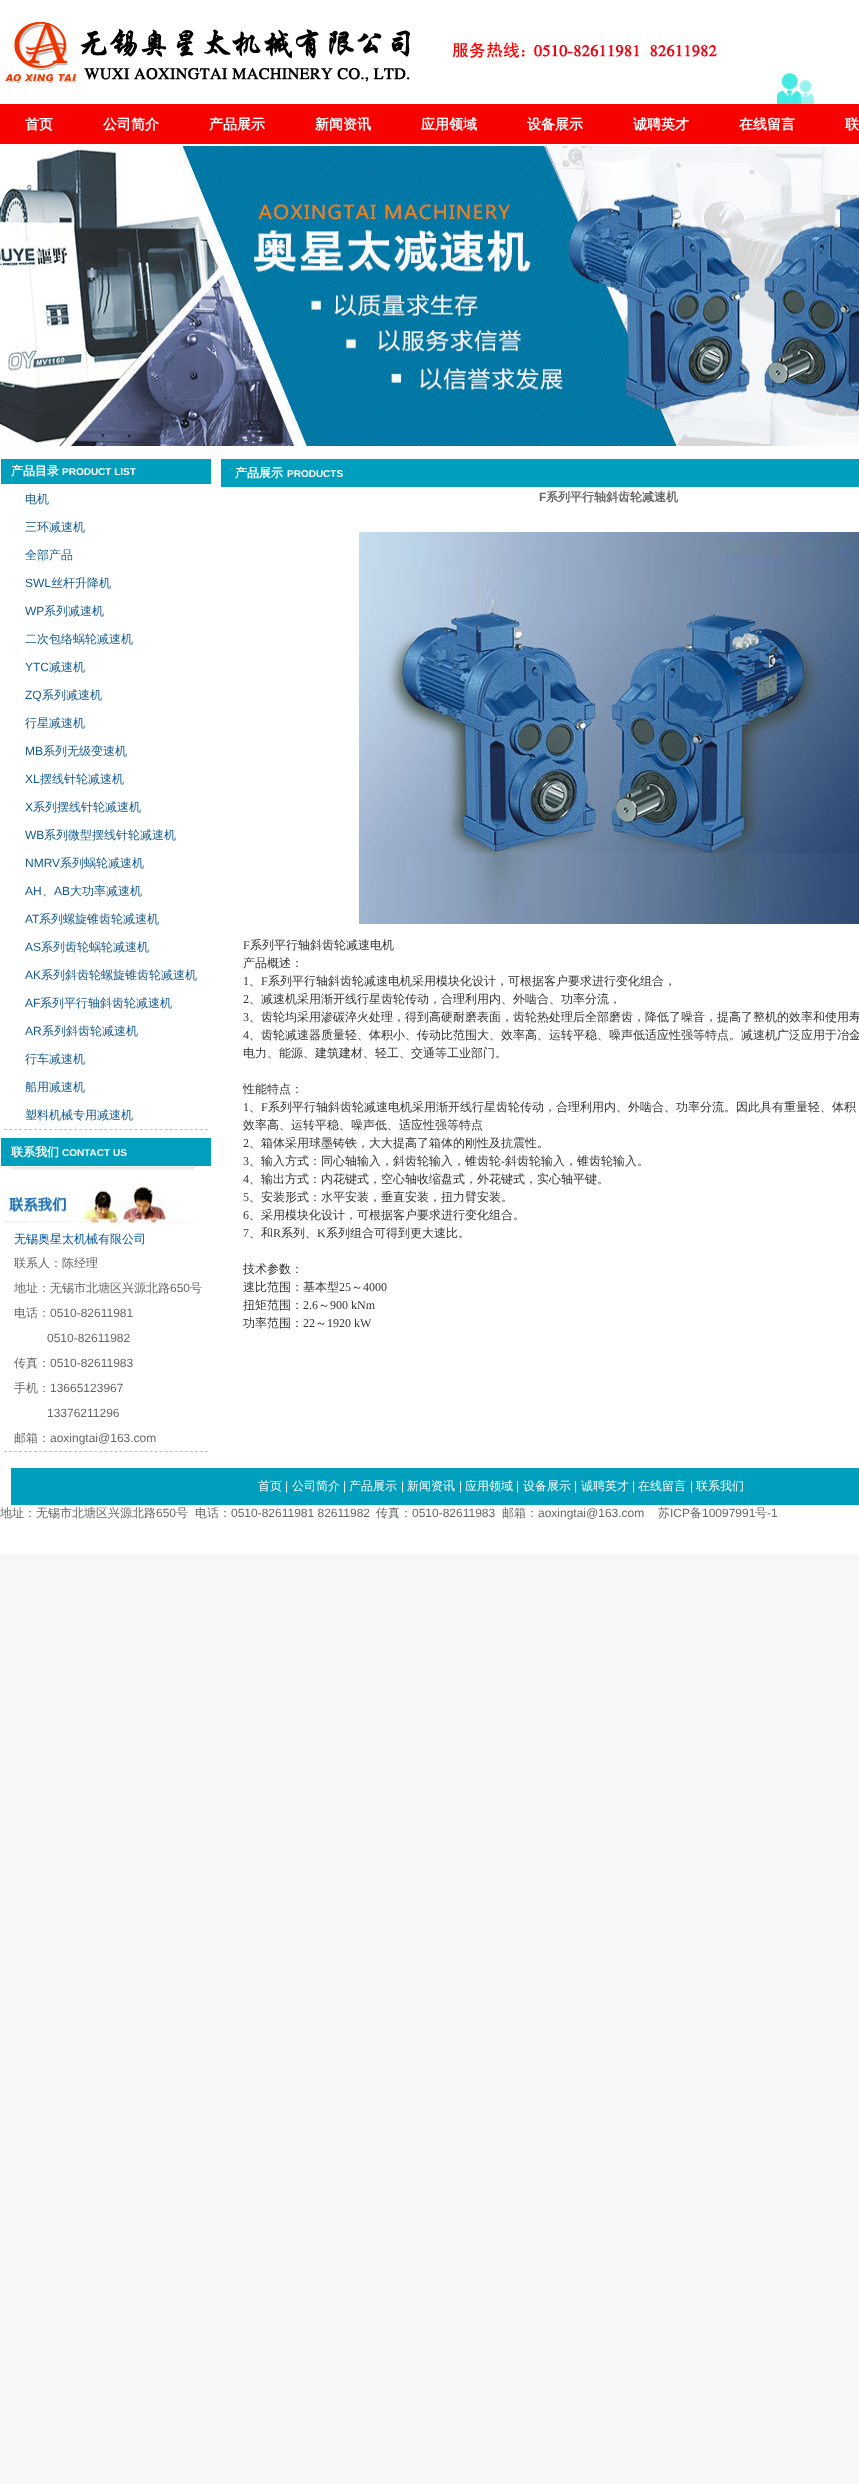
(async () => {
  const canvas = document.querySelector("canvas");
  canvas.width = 859;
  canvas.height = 2484;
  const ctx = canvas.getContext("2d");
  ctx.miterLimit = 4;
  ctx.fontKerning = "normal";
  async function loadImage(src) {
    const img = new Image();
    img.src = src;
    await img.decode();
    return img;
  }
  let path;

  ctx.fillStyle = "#f7f7f7";
  ctx.fillRect(0, 0, 859, 2484);
  ctx.fillStyle = "#ffffff";
  ctx.fillRect(0, 0, 859, 1554);
  ctx.drawImage(await loadImage("img/1.png"), 3, 22, 407, 61);
  ctx.drawImage(await loadImage("img/2.png"), 449, 42, 268, 16);
  ctx.drawImage(await loadImage("img/3.png"), 777, 72, 37, 32);
  ctx.fillStyle = "#f70101";
  ctx.fillRect(0, 104, 859, 40);
  ctx.drawImage(await loadImage("img/4.png"), 0, 146, 859, 300);
  ctx.fillStyle = "#009fbd";
  ctx.fillRect(1, 459, 210, 25);
  path = new Path2D("M4 1129.5H208");
  ctx.strokeStyle = "#8cd4e1";
  ctx.setLineDash([3, 2.02]);
  ctx.stroke(path);
  ctx.fillRect(1, 1138, 210, 28);
  ctx.drawImage(await loadImage("img/5.png"), 4, 1167, 190, 59);
  path = new Path2D("M4 1451.5H208");
  ctx.stroke(path);
  ctx.fillRect(221, 459, 638, 28);
  ctx.drawImage(await loadImage("img/6.png"), 359, 532, 500, 392);
  ctx.fillRect(11, 1468, 848, 37);
  ctx.font = "bold 14px WenQuanYi Zen Hei";
  ctx.fillStyle = "#ffffff";
  for (const [text, x, y] of [
    ["首页", 25, 129],
    ["公司简介", 103, 129],
    ["产品展示", 209, 129],
    ["新闻资讯", 315, 129],
    ["应用领域", 421, 129],
    ["设备展示", 527, 129],
    ["诚聘英才", 633, 129],
    ["在线留言", 739, 129],
    ["联", 845, 129],
  ]) {
    ctx.fillText(text, x, y);
  }
  ctx.font = "bold 12px WenQuanYi Zen Hei";
  ctx.fillText("产品目录", 11, 475);
  ctx.font = "bold 10px Liberation Sans";
  ctx.fillText("PRODUCT LIST", 62, 475);
  ctx.font = "500 12px WenQuanYi Zen Hei";
  ctx.fillStyle = "#135a8e";
  for (const [text, x, y] of [
    ["电机", 25, 503],
    ["三环减速机", 25, 531],
    ["全部产品", 25, 559],
  ]) {
    ctx.fillText(text, x, y);
  }
  ctx.font = "12px Liberation Sans";
  ctx.fillText("SWL", 25, 587);
  ctx.font = "500 12px WenQuanYi Zen Hei";
  ctx.fillText("丝杆升降机", 51, 587);
  ctx.font = "12px Liberation Sans";
  ctx.fillText("WP", 25, 615);
  ctx.font = "500 12px WenQuanYi Zen Hei";
  ctx.fillText("系列减速机", 44, 615);
  ctx.fillText("二次包络蜗轮减速机", 25, 643);
  ctx.font = "12px Liberation Sans";
  ctx.fillText("YTC", 25, 671);
  ctx.font = "500 12px WenQuanYi Zen Hei";
  ctx.fillText("减速机", 49, 671);
  ctx.font = "12px Liberation Sans";
  ctx.fillText("ZQ", 25, 699);
  ctx.font = "500 12px WenQuanYi Zen Hei";
  ctx.fillText("系列减速机", 42, 699);
  ctx.fillText("行星减速机", 25, 727);
  ctx.font = "12px Liberation Sans";
  ctx.fillText("MB", 25, 755);
  ctx.font = "500 12px WenQuanYi Zen Hei";
  ctx.fillText("系列无级变速机", 43, 755);
  ctx.font = "12px Liberation Sans";
  ctx.fillText("XL", 25, 783);
  ctx.font = "500 12px WenQuanYi Zen Hei";
  ctx.fillText("摆线针轮减速机", 40, 783);
  ctx.font = "12px Liberation Sans";
  ctx.fillText("X", 25, 811);
  ctx.font = "500 12px WenQuanYi Zen Hei";
  ctx.fillText("系列摆线针轮减速机", 33, 811);
  ctx.font = "12px Liberation Sans";
  ctx.fillText("WB", 25, 839);
  ctx.font = "500 12px WenQuanYi Zen Hei";
  ctx.fillText("系列微型摆线针轮减速机", 44, 839);
  ctx.font = "12px Liberation Sans";
  ctx.fillText("NMRV", 25, 867);
  ctx.font = "500 12px WenQuanYi Zen Hei";
  ctx.fillText("系列蜗轮减速机", 60, 867);
  ctx.font = "12px Liberation Sans";
  ctx.fillText("AH", 25, 895);
  ctx.fillText("AB", 54, 895);
  ctx.font = "500 12px WenQuanYi Zen Hei";
  ctx.fillText("大功率减速机", 70, 895);
  ctx.fillText("、", 42, 895);
  ctx.font = "12px Liberation Sans";
  ctx.fillText("AT", 25, 923);
  ctx.font = "500 12px WenQuanYi Zen Hei";
  ctx.fillText("系列螺旋锥齿轮减速机", 39, 923);
  ctx.font = "12px Liberation Sans";
  ctx.fillText("AS", 25, 951);
  ctx.font = "500 12px WenQuanYi Zen Hei";
  ctx.fillText("系列齿轮蜗轮减速机", 41, 951);
  ctx.font = "12px Liberation Sans";
  ctx.fillText("AK", 25, 979);
  ctx.font = "500 12px WenQuanYi Zen Hei";
  ctx.fillText("系列斜齿轮螺旋锥齿轮减速机", 41, 979);
  ctx.font = "12px Liberation Sans";
  ctx.fillText("AF", 25, 1007);
  ctx.font = "500 12px WenQuanYi Zen Hei";
  ctx.fillText("系列平行轴斜齿轮减速机", 40, 1007);
  ctx.font = "12px Liberation Sans";
  ctx.fillText("AR", 25, 1035);
  ctx.font = "500 12px WenQuanYi Zen Hei";
  for (const [text, x, y] of [
    ["系列斜齿轮减速机", 42, 1035],
    ["行车减速机", 25, 1063],
    ["船用减速机", 25, 1091],
    ["塑料机械专用减速机", 25, 1119],
  ]) {
    ctx.fillText(text, x, y);
  }
  ctx.font = "bold 12px WenQuanYi Zen Hei";
  ctx.fillStyle = "#ffffff";
  ctx.fillText("联系我们", 11, 1156);
  ctx.font = "bold 10px Liberation Sans";
  ctx.fillText("CONTACT US", 62, 1156);
  ctx.font = "500 12px WenQuanYi Zen Hei";
  ctx.fillStyle = "#00539f";
  ctx.fillText("无锡奥星太机械有限公司", 14, 1243);
  ctx.fillStyle = "#666666";
  ctx.fillText("联系人：陈经理", 14, 1267);
  ctx.fillText("地址：无锡市北塘区兴源北路", 14, 1292);
  ctx.font = "12px Liberation Sans";
  ctx.fillText("650", 170, 1292);
  ctx.font = "500 12px WenQuanYi Zen Hei";
  ctx.fillText("号", 190, 1292);
  ctx.fillText("电话：", 14, 1317);
  ctx.font = "12px Liberation Sans";
  ctx.fillText("0510-82611981", 50, 1317);
  ctx.fillText("0510-82611982", 47, 1342);
  ctx.font = "500 12px WenQuanYi Zen Hei";
  ctx.fillText("传真：", 14, 1367);
  ctx.font = "12px Liberation Sans";
  ctx.fillText("0510-82611983", 50, 1367);
  ctx.font = "500 12px WenQuanYi Zen Hei";
  ctx.fillText("手机：", 14, 1392);
  ctx.font = "12px Liberation Sans";
  ctx.fillText("13665123967", 50, 1392);
  ctx.fillText("13376211296", 47, 1417);
  ctx.font = "500 12px WenQuanYi Zen Hei";
  ctx.fillText("邮箱：", 14, 1442);
  ctx.font = "12px Liberation Sans";
  ctx.fillText("aoxingtai@163.com", 50, 1442);
  ctx.font = "bold 12px WenQuanYi Zen Hei";
  ctx.fillStyle = "#ffffff";
  ctx.fillText("产品展示", 235, 477);
  ctx.font = "bold 10px Liberation Sans";
  ctx.fillText("PRODUCTS", 287, 477);
  ctx.font = "bold 12px Liberation Sans";
  ctx.fillStyle = "#666666";
  ctx.fillText("F", 539, 501);
  ctx.font = "bold 12px WenQuanYi Zen Hei";
  ctx.fillText("系列平行轴斜齿轮减速机", 546, 501);
  ctx.font = "12px Liberation Serif";
  ctx.fillStyle = "#333333";
  ctx.fillText("F", 243, 949);
  ctx.font = "500 12px WenQuanYi Zen Hei";
  ctx.fillText("系列平行轴斜齿轮减速电机", 250, 949);
  ctx.fillText("产品概述：", 243, 967);
  ctx.font = "12px Liberation Serif";
  ctx.fillText("1", 243, 985);
  ctx.fillText("F", 261, 985);
  ctx.font = "500 12px WenQuanYi Zen Hei";
  ctx.fillText("系列平行轴斜齿轮减速电机采用模块化设计，可根据客户要求进行变化组合，", 268, 985);
  ctx.fillText("、", 249, 985);
  ctx.font = "12px Liberation Serif";
  ctx.fillText("2", 243, 1003);
  ctx.font = "500 12px WenQuanYi Zen Hei";
  ctx.fillText("、减速机采用渐开线行星齿轮传动，合理利用内、外啮合、功率分流，", 249, 1003);
  ctx.font = "12px Liberation Serif";
  ctx.fillText("3", 243, 1021);
  ctx.font = "500 12px WenQuanYi Zen Hei";
  ctx.fillText("、齿轮均采用渗碳淬火处理，得到高硬耐磨表面，齿轮热处理后全部磨齿，降低了噪音，提高了整机的效率和使用寿", 249, 1021);
  ctx.font = "12px Liberation Serif";
  ctx.fillText("4", 243, 1039);
  ctx.font = "500 12px WenQuanYi Zen Hei";
  for (const [text, x, y] of [
    ["、齿轮减速器质量轻、体积小、传动比范围大、效率高、运转平稳、噪声低适应性强等特点。减速机广泛应用于冶金", 249, 1039],
    ["电力、能源、建筑建材、轻工、交通等工业部门。", 243, 1057],
    ["性能特点：", 243, 1093],
  ]) {
    ctx.fillText(text, x, y);
  }
  ctx.font = "12px Liberation Serif";
  ctx.fillText("1", 243, 1111);
  ctx.fillText("F", 261, 1111);
  ctx.font = "500 12px WenQuanYi Zen Hei";
  for (const [text, x, y] of [
    ["系列平行轴斜齿轮减速电机采用渐开线行星齿轮传动，合理利用内、外啮合、功率分流。因此具有重量轻、体积", 268, 1111],
    ["、", 249, 1111],
    ["效率高、运转平稳、噪声低、适应性强等特点", 243, 1129],
  ]) {
    ctx.fillText(text, x, y);
  }
  ctx.font = "12px Liberation Serif";
  ctx.fillText("2", 243, 1147);
  ctx.font = "500 12px WenQuanYi Zen Hei";
  ctx.fillText("、箱体采用球墨铸铁，大大提高了箱体的刚性及抗震性。", 249, 1147);
  ctx.font = "12px Liberation Serif";
  ctx.fillText("3", 243, 1165);
  ctx.font = "500 12px WenQuanYi Zen Hei";
  ctx.fillText("、输入方式：同心轴输入，斜齿轮输入，锥齿轮", 249, 1165);
  ctx.font = "12px Liberation Serif";
  ctx.fillText("-", 501, 1165);
  ctx.font = "500 12px WenQuanYi Zen Hei";
  ctx.fillText("斜齿轮输入，锥齿轮输入。", 505, 1165);
  ctx.font = "12px Liberation Serif";
  ctx.fillText("4", 243, 1183);
  ctx.font = "500 12px WenQuanYi Zen Hei";
  ctx.fillText("、输出方式：内花键式，空心轴收缩盘式，外花键式，实心轴平键。", 249, 1183);
  ctx.font = "12px Liberation Serif";
  ctx.fillText("5", 243, 1201);
  ctx.font = "500 12px WenQuanYi Zen Hei";
  ctx.fillText("、安装形式：水平安装，垂直安装，扭力臂安装。", 249, 1201);
  ctx.font = "12px Liberation Serif";
  ctx.fillText("6", 243, 1219);
  ctx.font = "500 12px WenQuanYi Zen Hei";
  ctx.fillText("、采用模块化设计，可根据客户要求进行变化组合。", 249, 1219);
  ctx.font = "12px Liberation Serif";
  ctx.fillText("7", 243, 1237);
  ctx.font = "500 12px WenQuanYi Zen Hei";
  ctx.fillText("、和", 249, 1237);
  ctx.font = "12px Liberation Serif";
  ctx.fillText("R", 273, 1237);
  ctx.font = "500 12px WenQuanYi Zen Hei";
  ctx.fillText("系列、", 281, 1237);
  ctx.font = "12px Liberation Serif";
  ctx.fillText("K", 317, 1237);
  ctx.font = "500 12px WenQuanYi Zen Hei";
  for (const [text, x, y] of [
    ["系列组合可得到更大速比。", 326, 1237],
    ["技术参数：", 243, 1273],
    ["速比范围：基本型", 243, 1291],
  ]) {
    ctx.fillText(text, x, y);
  }
  ctx.font = "12px Liberation Serif";
  ctx.fillText("25", 339, 1291);
  ctx.font = "500 12px WenQuanYi Zen Hei";
  ctx.fillText("～", 351, 1291);
  ctx.font = "12px Liberation Serif";
  ctx.fillText("4000", 363, 1291);
  ctx.font = "500 12px WenQuanYi Zen Hei";
  ctx.fillText("扭矩范围：", 243, 1309);
  ctx.font = "12px Liberation Serif";
  ctx.fillText("2.6", 303, 1309);
  ctx.font = "500 12px WenQuanYi Zen Hei";
  ctx.fillText("～", 318, 1309);
  ctx.font = "12px Liberation Serif";
  ctx.fillText("900 kNm", 330, 1309);
  ctx.font = "500 12px WenQuanYi Zen Hei";
  ctx.fillText("功率范围：", 243, 1327);
  ctx.font = "12px Liberation Serif";
  ctx.fillText("22", 303, 1327);
  ctx.font = "500 12px WenQuanYi Zen Hei";
  ctx.fillText("～", 315, 1327);
  ctx.font = "12px Liberation Serif";
  ctx.fillText("1920 kW", 327, 1327);
  ctx.font = "500 12px WenQuanYi Zen Hei";
  ctx.fillStyle = "#ffffff";
  ctx.fillText("首页", 258, 1490);
  ctx.font = "12px Liberation Sans";
  ctx.fillText("|", 285, 1490);
  ctx.font = "500 12px WenQuanYi Zen Hei";
  ctx.fillText("公司简介", 292, 1490);
  ctx.font = "12px Liberation Sans";
  ctx.fillText("|", 343, 1490);
  ctx.font = "500 12px WenQuanYi Zen Hei";
  ctx.fillText("产品展示", 349, 1490);
  ctx.font = "12px Liberation Sans";
  ctx.fillText("|", 401, 1490);
  ctx.font = "500 12px WenQuanYi Zen Hei";
  ctx.fillText("新闻资讯", 407, 1490);
  ctx.font = "12px Liberation Sans";
  ctx.fillText("|", 459, 1490);
  ctx.font = "500 12px WenQuanYi Zen Hei";
  ctx.fillText("应用领域", 465, 1490);
  ctx.font = "12px Liberation Sans";
  ctx.fillText("|", 516, 1490);
  ctx.font = "500 12px WenQuanYi Zen Hei";
  ctx.fillText("设备展示", 523, 1490);
  ctx.font = "12px Liberation Sans";
  ctx.fillText("|", 574, 1490);
  ctx.font = "500 12px WenQuanYi Zen Hei";
  ctx.fillText("诚聘英才", 581, 1490);
  ctx.font = "12px Liberation Sans";
  ctx.fillText("|", 632, 1490);
  ctx.font = "500 12px WenQuanYi Zen Hei";
  ctx.fillText("在线留言", 638, 1490);
  ctx.font = "12px Liberation Sans";
  ctx.fillText("|", 690, 1490);
  ctx.font = "500 12px WenQuanYi Zen Hei";
  ctx.fillText("联系我们", 696, 1490);
  ctx.fillStyle = "#666666";
  ctx.fillText("地址：无锡市北塘区兴源北路", 0, 1517);
  ctx.font = "12px Liberation Sans";
  ctx.fillText("650", 156, 1517);
  ctx.font = "500 12px WenQuanYi Zen Hei";
  ctx.fillText("号", 176, 1517);
  ctx.fillText("电话：", 195, 1517);
  ctx.font = "12px Liberation Sans";
  ctx.fillText("0510-82611981 82611982", 231, 1517);
  ctx.font = "500 12px WenQuanYi Zen Hei";
  ctx.fillText("传真：", 376, 1517);
  ctx.font = "12px Liberation Sans";
  ctx.fillText("0510-82611983", 412, 1517);
  ctx.font = "500 12px WenQuanYi Zen Hei";
  ctx.fillText("邮箱：", 502, 1517);
  ctx.font = "12px Liberation Sans";
  ctx.fillText("aoxingtai@163.com", 538, 1517);
  ctx.font = "500 12px WenQuanYi Zen Hei";
  ctx.fillText("苏", 658, 1517);
  ctx.font = "12px Liberation Sans";
  ctx.fillText("ICP", 670, 1517);
  ctx.font = "500 12px WenQuanYi Zen Hei";
  ctx.fillText("备", 690, 1517);
  ctx.font = "12px Liberation Sans";
  ctx.fillText("10097991", 702, 1517);
  ctx.font = "500 12px WenQuanYi Zen Hei";
  ctx.fillText("号", 755, 1517);
  ctx.font = "12px Liberation Sans";
  ctx.fillText("-1", 767, 1517);
})();
